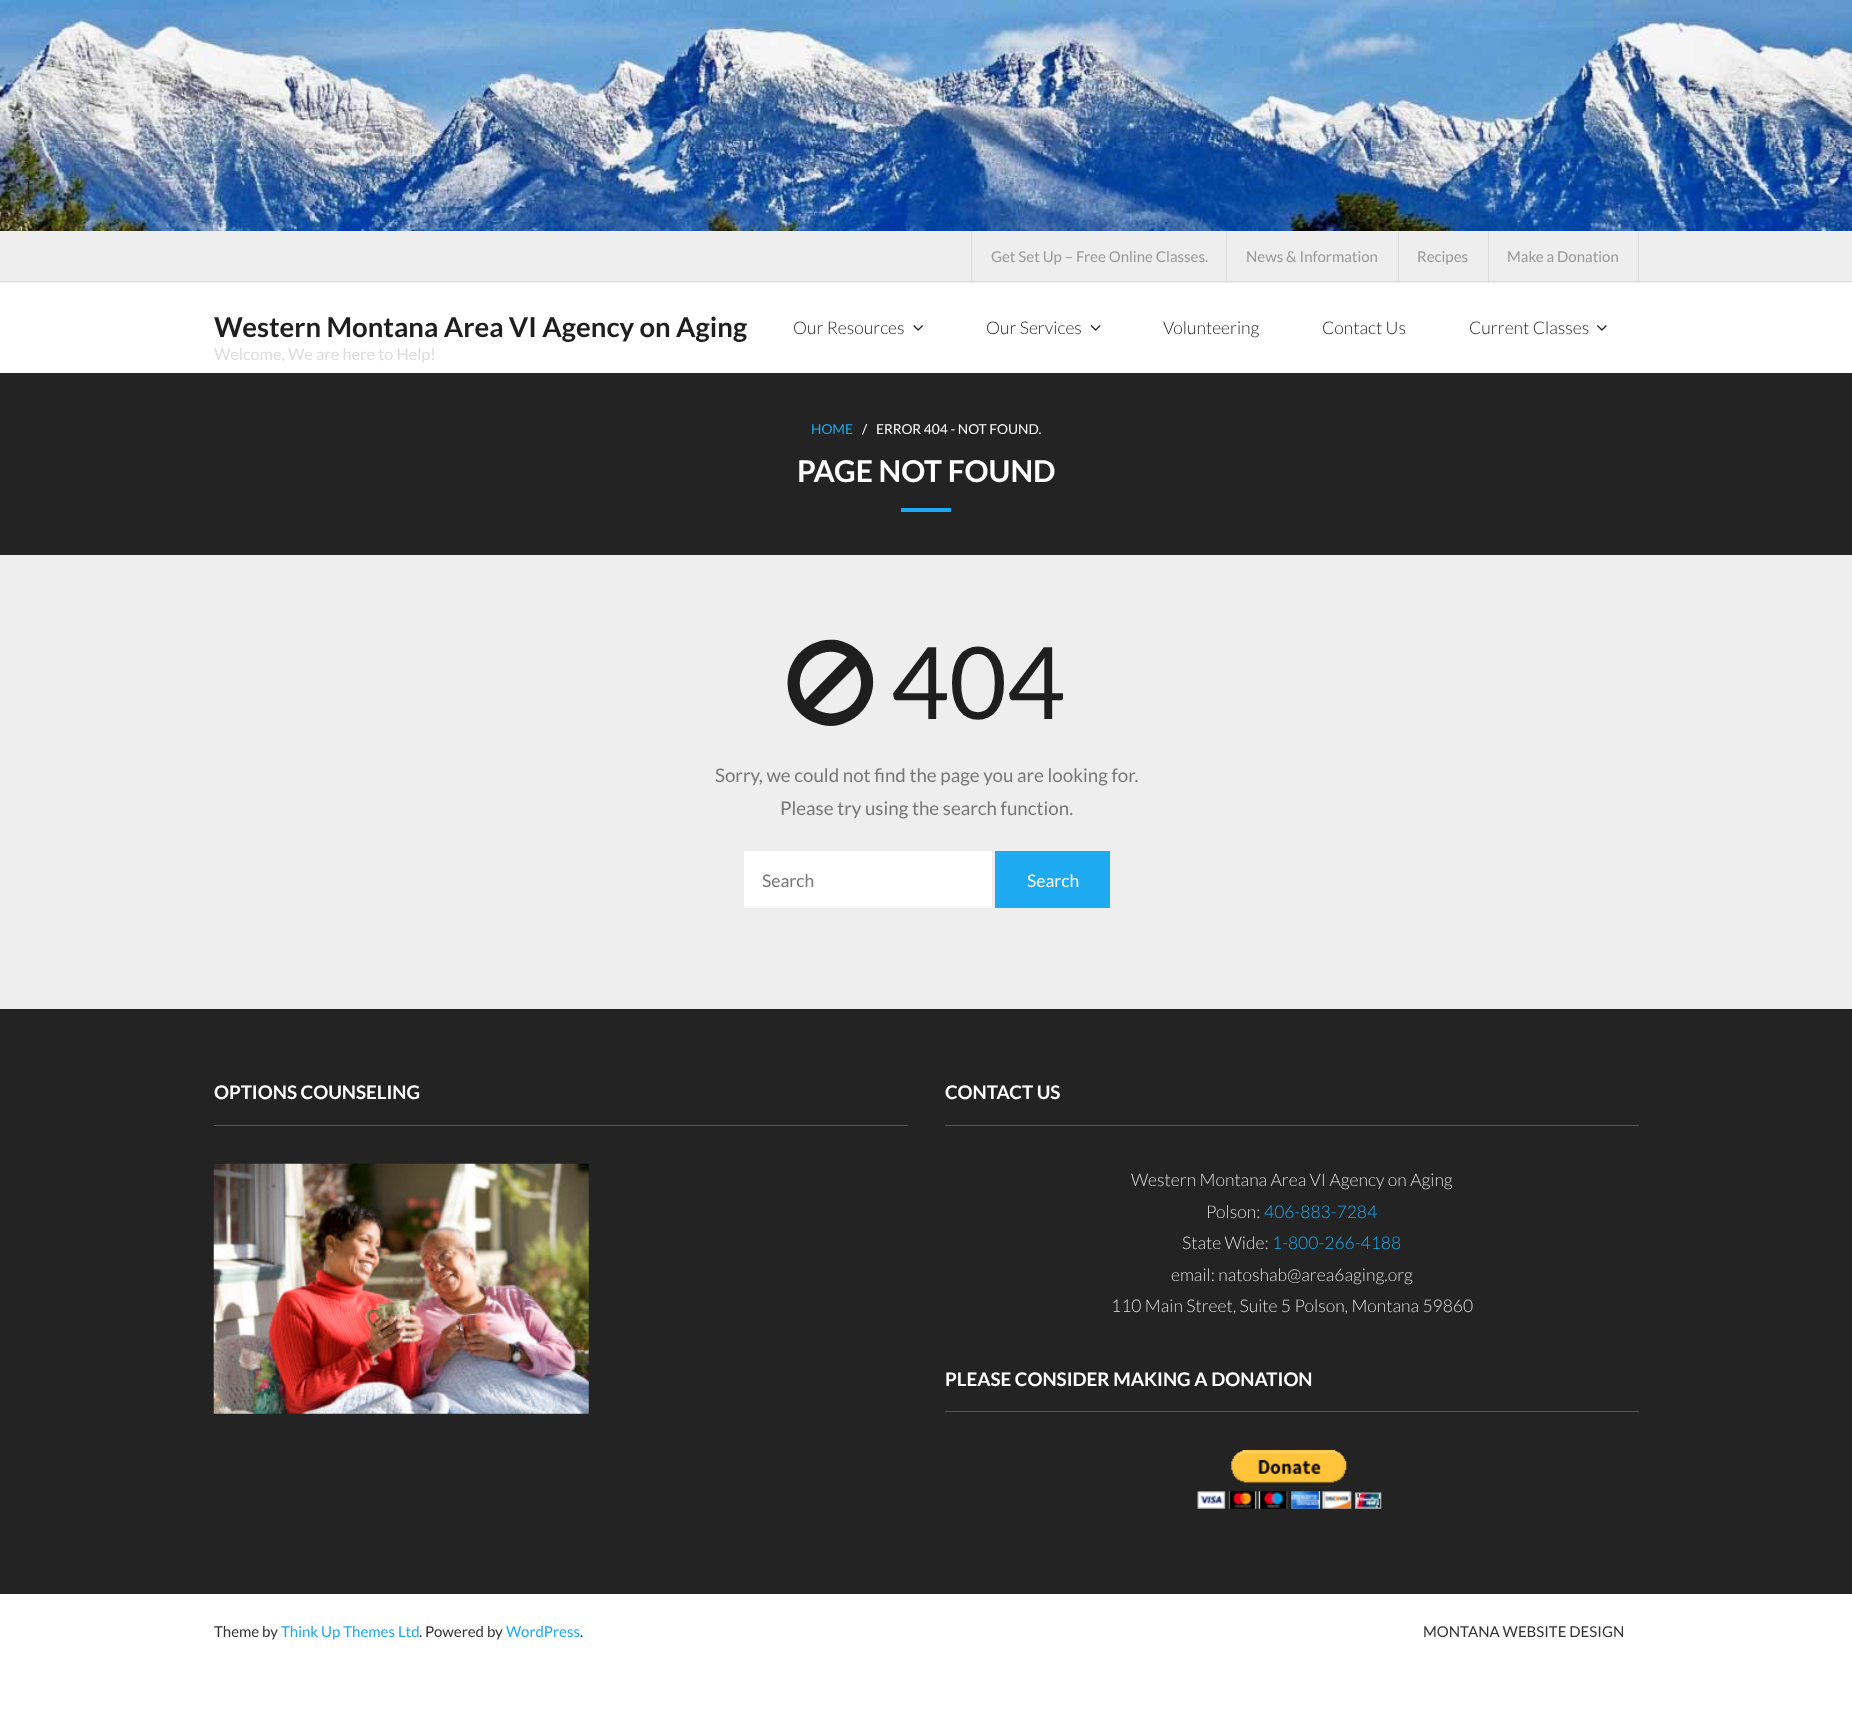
(async () => {
  const canvas = document.querySelector("canvas");
  canvas.width = 1852;
  canvas.height = 1718;
  const ctx = canvas.getContext("2d");
  ctx.miterLimit = 4;
  ctx.fontKerning = "normal";
  async function loadImage(src) {
    const img = new Image();
    img.src = src;
    await img.decode();
    return img;
  }
  let path;

  ctx.fillStyle = "#ffffff";
  ctx.fillRect(0, 0, 1852, 1718);
  ctx.fillStyle = "#eeeeee";
  ctx.fillRect(0, 555, 1852, 454);
  ctx.drawImage(await loadImage("img/1.png"), 0, 0, 1852, 231);
  for (const [x, y, w, h, color] of [
    [0, 231, 1852, 52, "#eeeeee"],
    [0, 281, 1852, 1, "#dddddd"],
    [971, 231, 1, 50, "#dddddd"],
    [1226, 231, 1, 50, "#dddddd"],
    [1398, 231, 1, 50, "#dddddd"],
    [1638, 231, 1, 50, "#dddddd"],
    [1488, 231, 1, 50, "#dddddd"],
  ]) {
    ctx.fillStyle = color;
    ctx.fillRect(x, y, w, h);
  }
  ctx.drawImage(await loadImage("img/2.png"), 913, 325, 10, 6);
  ctx.drawImage(await loadImage("img/3.png"), 1090, 325, 11, 6);
  ctx.drawImage(await loadImage("img/4.png"), 1597, 325, 10, 6);
  ctx.fillStyle = "#232323";
  ctx.fillRect(0, 373, 1852, 182);
  ctx.fillStyle = "#1eaaf1";
  ctx.fillRect(901, 508, 50, 4);
  ctx.fillStyle = "#1e1e1e";
  path = new Path2D("M861 683C861 677 859 671 856 666L814 708C834 722 861 707 861 683ZM805 700L847 657C820 639 787 672 805 700ZM870 666C879 688 868 713 847 722C837 727 826 727 816 723C780 710 778 661 812 644C820 640 828 639 837 640C852 643 864 653 870 666Z");
  ctx.fill(path);
  for (const [x, y, w, h, color] of [
    [744, 851, 248, 57, "#ffffff"],
    [995, 851, 115, 57, "#1eaaf1"],
    [0, 1009, 1852, 585, "#232323"],
    [214, 1125, 694, 1, "#565656"],
  ]) {
    ctx.fillStyle = color;
    ctx.fillRect(x, y, w, h);
  }
  ctx.drawImage(await loadImage("img/5.png"), 213, 1163, 376, 251);
  ctx.fillRect(945, 1125, 694, 1);
  ctx.fillRect(945, 1411, 694, 1);
  ctx.drawImage(await loadImage("img/6.png"), 1197, 1450, 185, 59);
  ctx.font = "15px Lato";
  ctx.fillStyle = "#999999";
  for (const [text, x, y] of [
    ["Get Set Up – Free Online Classes.", 991, 262],
    ["News & Information", 1246, 262],
    ["Recipes", 1417, 262],
    ["Make a Donation", 1507, 262],
  ]) {
    ctx.fillText(text, x, y);
  }
  ctx.font = "bold 27.5px Lato";
  ctx.fillStyle = "#1e1e1e";
  ctx.fillText("Western Montana Area VI Agency on Aging", 214, 337);
  ctx.font = "16.25px Lato";
  ctx.fillStyle = "#dddddd";
  ctx.fillText("Welcome, We are here to Help!", 214, 360);
  ctx.font = "300 17.5px Lato";
  ctx.fillStyle = "#1e1e1e";
  for (const [text, x, y] of [
    ["Our Resources", 793, 334],
    ["Our Services", 986, 334],
    ["Volunteering", 1163, 334],
    ["Contact Us", 1322, 334],
    ["Current Classes", 1469, 334],
  ]) {
    ctx.fillText(text, x, y);
  }
  ctx.font = "13.75px Lato";
  ctx.fillStyle = "#1eaaf1";
  ctx.fillText("HOME", 811, 434);
  ctx.fillStyle = "#ffffff";
  ctx.fillText("/", 862, 434);
  ctx.fillText("ERROR 404 - NOT FOUND.", 876, 434);
  ctx.font = "bold 30px Lato";
  ctx.fillText("PAGE NOT FOUND", 797, 482);
  ctx.font = "100px Lato";
  ctx.fillStyle = "#1e1e1e";
  ctx.fillText("404", 891, 719);
  ctx.font = "18.75px Lato";
  ctx.fillStyle = "#777777";
  ctx.fillText("Sorry, we could not find the page you are looking for.", 715, 782);
  ctx.fillText("Please try using the search function.", 780, 815);
  ctx.font = "17.5px Lato";
  ctx.fillText("Search", 762, 887);
  ctx.fillStyle = "#ffffff";
  ctx.fillText("Search", 1027, 887);
  ctx.font = "bold 18.75px Lato";
  ctx.fillText("OPTIONS COUNSELING", 214, 1099);
  ctx.fillText("CONTACT US", 945, 1099);
  ctx.font = "300 17.5px Lato";
  ctx.fillStyle = "#dddddd";
  ctx.fillText("Western Montana Area VI Agency on Aging", 1131, 1186);
  ctx.fillText("Polson:", 1206, 1218);
  ctx.fillStyle = "#1eaaf1";
  ctx.fillText("406-883-7284", 1264, 1218);
  ctx.fillStyle = "#dddddd";
  ctx.fillText("State Wide:", 1182, 1249);
  ctx.fillStyle = "#1eaaf1";
  ctx.fillText("1-800-266-4188", 1272, 1249);
  ctx.fillStyle = "#dddddd";
  ctx.fillText("email: natoshab@area6aging.org", 1171, 1281);
  ctx.fillText("110 Main Street, Suite 5 Polson, Montana 59860", 1111, 1312);
  ctx.font = "bold 18.75px Lato";
  ctx.fillStyle = "#ffffff";
  ctx.fillText("PLEASE CONSIDER MAKING A DONATION", 945, 1386);
  ctx.font = "15px Lato";
  ctx.fillStyle = "#333333";
  ctx.fillText("Theme by", 214, 1637);
  ctx.fillStyle = "#1eaaf1";
  ctx.fillText("Think Up Themes Ltd", 281, 1637);
  ctx.fillStyle = "#333333";
  ctx.fillText(". Powered by", 419, 1637);
  ctx.fillStyle = "#1eaaf1";
  ctx.fillText("WordPress", 506, 1637);
  ctx.fillStyle = "#333333";
  ctx.fillText(".", 580, 1637);
  ctx.fillText("MONTANA WEBSITE DESIGN", 1423, 1637);
})();
